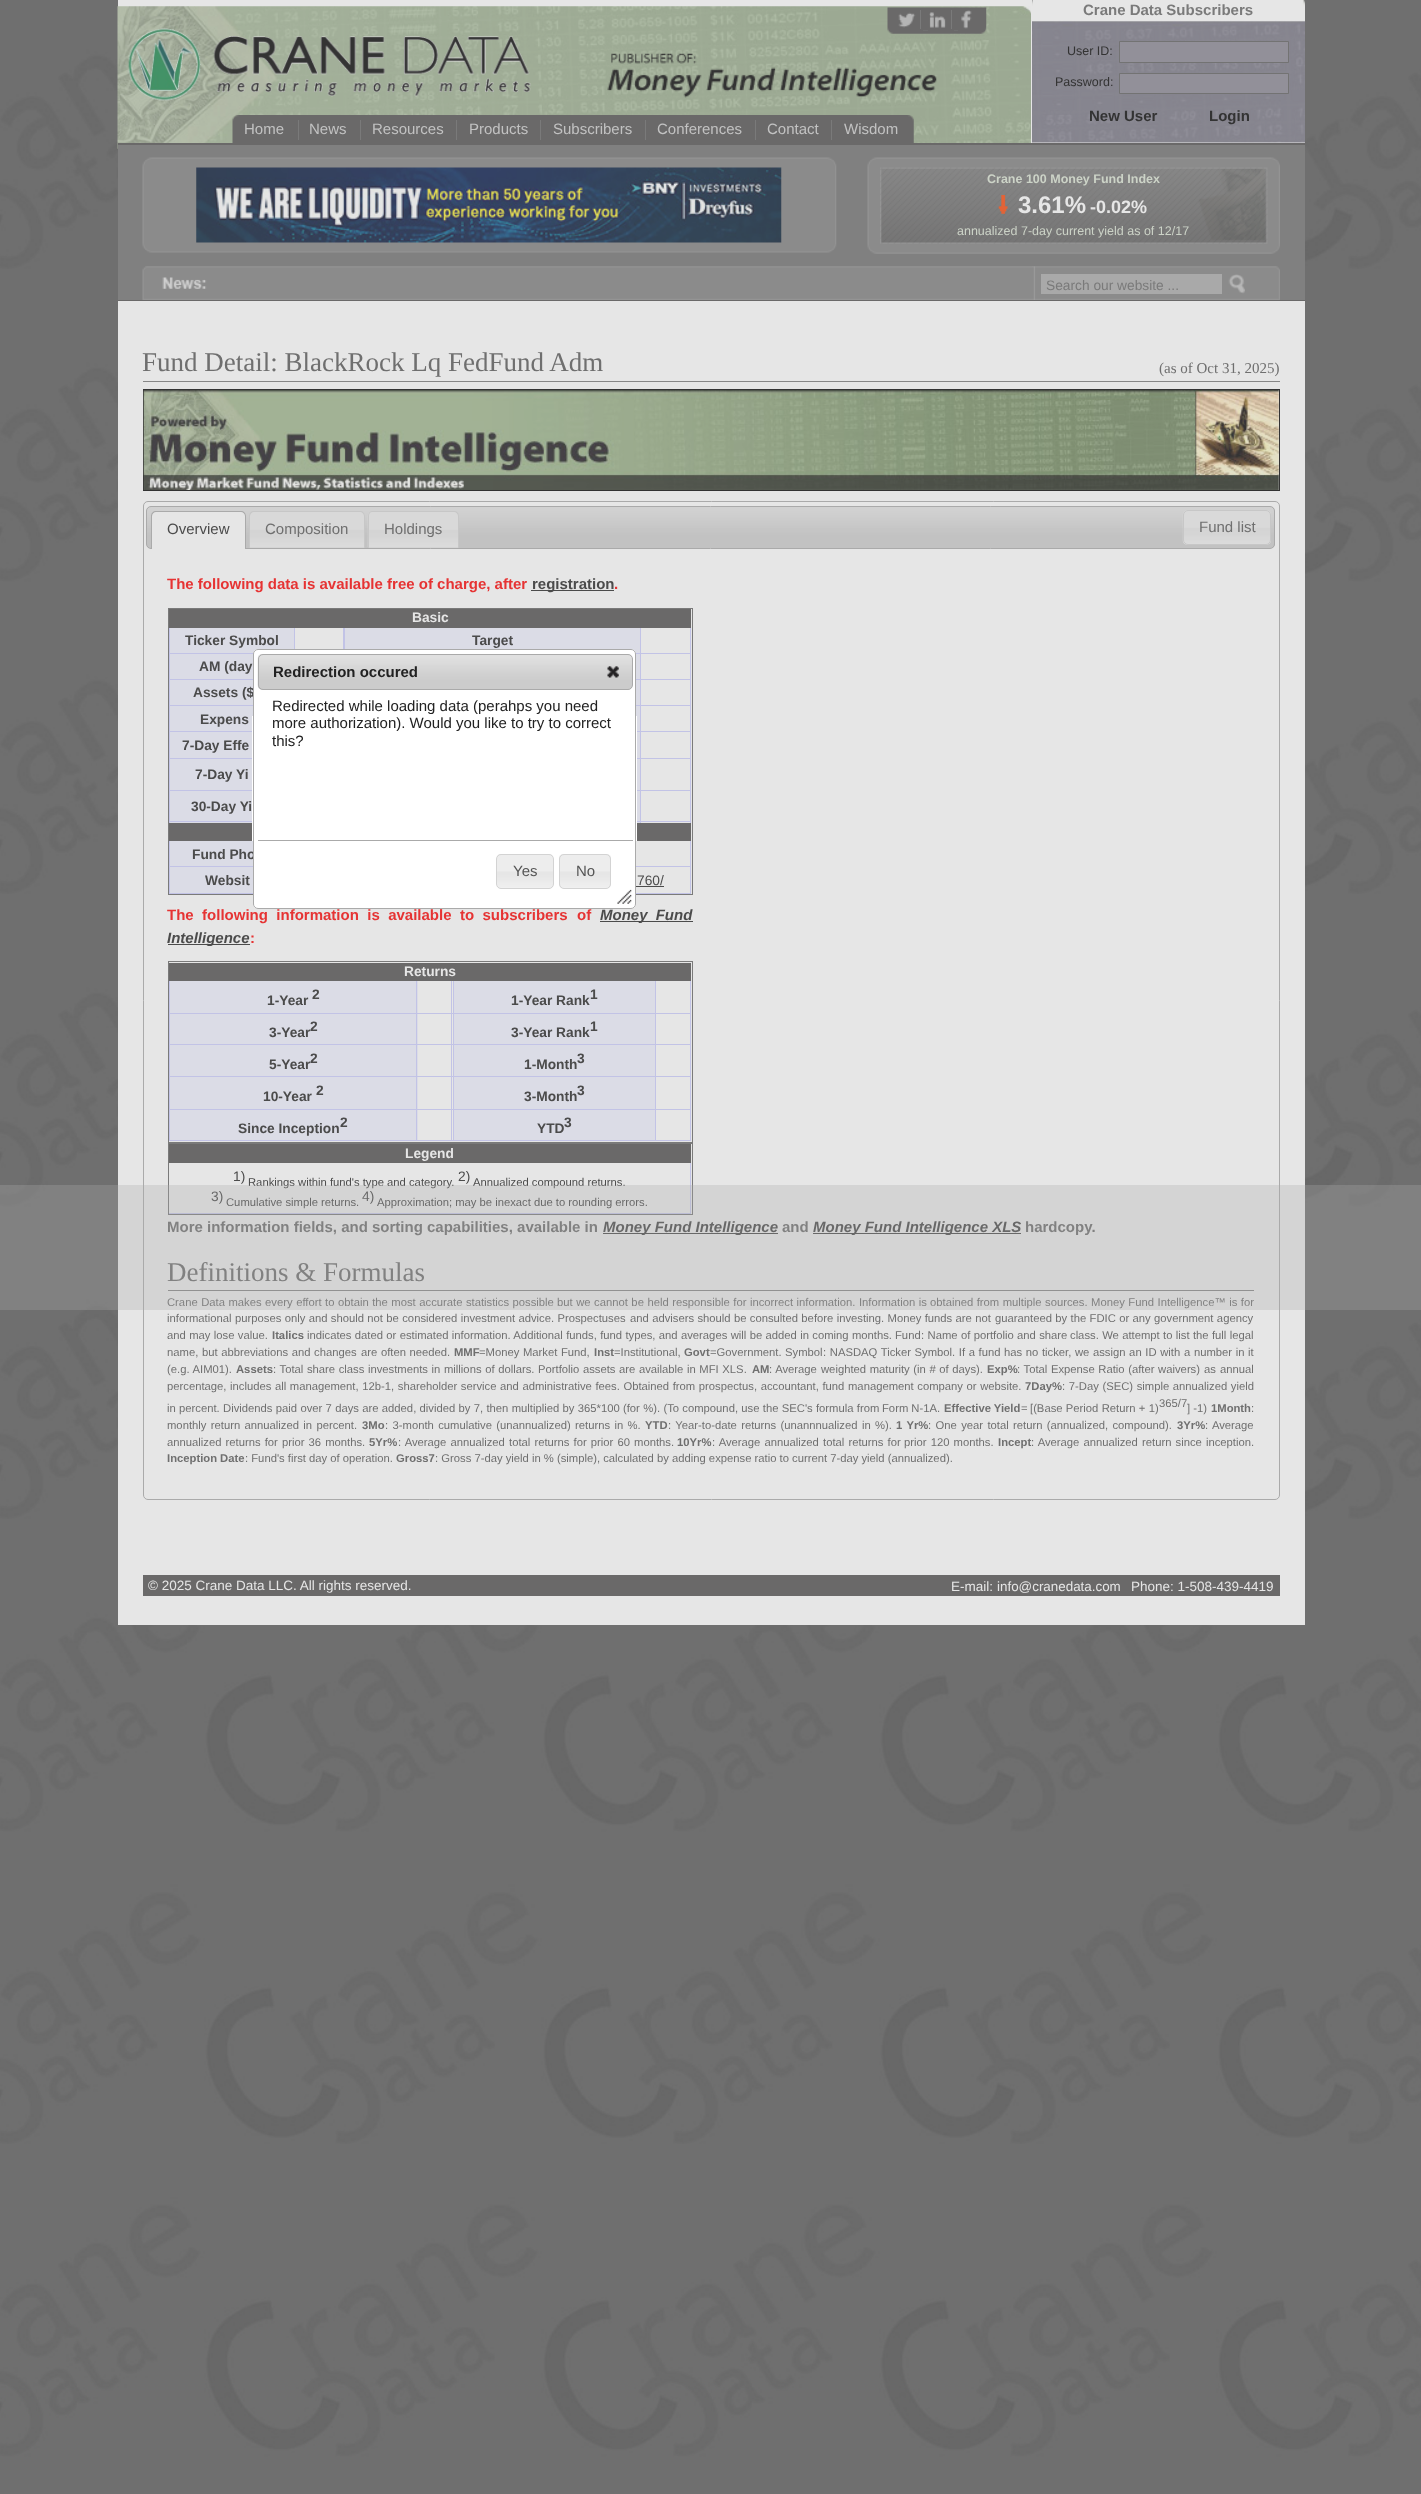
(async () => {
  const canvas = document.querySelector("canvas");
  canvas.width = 1421;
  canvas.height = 2494;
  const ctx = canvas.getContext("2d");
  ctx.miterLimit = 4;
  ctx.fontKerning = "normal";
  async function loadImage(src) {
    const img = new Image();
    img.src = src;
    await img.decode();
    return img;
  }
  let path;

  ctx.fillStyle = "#ffffff";
  ctx.fillRect(0, 0, 1421, 2494);
  ctx.drawImage(await loadImage("img/1.png"), 0, 0, 1421, 2494);
  ctx.fillStyle = "#e6e6e6";
  ctx.fillRect(118, 0, 1187, 1625);
  ctx.drawImage(await loadImage("img/2.png"), 117, 6, 914, 143);
  ctx.drawImage(await loadImage("img/3.png"), 607, 53, 330, 45);
  ctx.drawImage(await loadImage("img/4.png"), 1032, 0, 273, 143);
  ctx.fillStyle = "#929099";
  ctx.beginPath();
  ctx.rect(1119.5, 41.5, 169, 21);
  ctx.fill();
  ctx.strokeStyle = "#737373";
  ctx.stroke();
  ctx.beginPath();
  ctx.rect(1119.5, 73.5, 169, 20);
  ctx.fill();
  ctx.stroke();
  ctx.fillStyle = "#6a6969";
  ctx.fillRect(118, 143, 1187, 2);
  ctx.drawImage(await loadImage("img/5.png"), 887, 7, 100, 27);
  ctx.drawImage(await loadImage("img/6.png"), 898, 12, 18, 16);
  ctx.fillStyle = "#7a7a7a";
  ctx.fillRect(920, 10, 1, 19);
  ctx.drawImage(await loadImage("img/7.png"), 929, 12, 17, 16);
  ctx.fillRect(951, 10, 1, 19);
  ctx.drawImage(await loadImage("img/8.png"), 961, 10, 11, 19);
  ctx.fillStyle = "#6f6f6f";
  ctx.fillRect(923, 30, 5, 1);
  ctx.fillRect(954, 30, 4, 1);
  ctx.drawImage(await loadImage("img/9.png"), 128, 28, 403, 73);
  ctx.drawImage(await loadImage("img/10.png"), 232, 115, 34, 28);
  ctx.drawImage(await loadImage("img/11.png"), 266, 115, 648, 28);
  for (const [x, y, w, h, color] of [
    [298, 120, 1, 20, "#7a7a7a"],
    [360, 120, 1, 20, "#7a7a7a"],
    [456, 120, 1, 20, "#7a7a7a"],
    [540, 120, 1, 20, "#7a7a7a"],
    [645, 120, 1, 20, "#7a7a7a"],
    [755, 120, 1, 20, "#7a7a7a"],
    [831, 120, 1, 20, "#7a7a7a"],
    [118, 145, 1187, 155, "#808080"],
  ]) {
    ctx.fillStyle = color;
    ctx.fillRect(x, y, w, h);
  }
  ctx.drawImage(await loadImage("img/12.png"), 142, 157, 695, 96);
  ctx.drawImage(await loadImage("img/13.png"), 196, 167, 586, 76);
  ctx.drawImage(await loadImage("img/14.png"), 867, 157, 413, 97);
  ctx.drawImage(await loadImage("img/15.png"), 880, 167, 388, 77);
  ctx.drawImage(await loadImage("img/16.png"), 998, 195, 10, 19);
  ctx.fillStyle = "#6a6969";
  ctx.fillRect(118, 300, 1187, 1);
  ctx.drawImage(await loadImage("img/17.png"), 142, 266, 891, 34);
  ctx.drawImage(await loadImage("img/18.png"), 1032, 266, 248, 34);
  ctx.fillStyle = "#a9a9a9";
  ctx.fillRect(1041, 274, 181, 20);
  ctx.drawImage(await loadImage("img/19.png"), 1228, 274, 17, 20);
  ctx.fillStyle = "#868686";
  ctx.fillRect(143, 381, 1137, 1);
  ctx.strokeStyle = "#333333";
  ctx.strokeRect(143.5, 389.5, 1136, 101);
  ctx.drawImage(await loadImage("img/20.png"), 143, 390, 1136, 100);
  ctx.beginPath();
  ctx.roundRect(143.5, 501.5, 1136, 998, 4.5);
  ctx.strokeStyle = "#aaaaaa";
  ctx.stroke();
  ctx.drawImage(await loadImage("img/21.png"), 146, 506, 1129, 42);
  ctx.beginPath();
  ctx.roundRect(146.5, 506.5, 1128, 42, 4.5);
  ctx.stroke();
  ctx.fillStyle = "#e6e6e6";
  ctx.beginPath();
  ctx.roundRect(151, 511, 95, 38, [5, 5, 0, 0]);
  ctx.fill();
  ctx.drawImage(await loadImage("img/22.png"), 243, 511, 3, 4);
  ctx.fillStyle = "#aaaaaa";
  path = new Path2D("M156 511H241C244 511 246 513 246 516V549H151V516C151 513 153 511 156 511ZM156 512H241C243 512 245 514 245 516V549H152V516C152 514 154 512 156 512Z");
  ctx.fill(path, "evenodd");
  ctx.fillStyle = "#d4d4d4";
  ctx.beginPath();
  ctx.roundRect(249, 511, 116, 37, [5, 5, 0, 0]);
  ctx.fill();
  ctx.drawImage(await loadImage("img/23.png"), 249, 511, 116, 36);
  ctx.fillStyle = "#c7c7c7";
  path = new Path2D("M254 511H360C363 511 365 513 365 516V548H249V516C249 513 251 511 254 511ZM254 512H360C362 512 364 514 364 516V548H250V516C250 514 252 512 254 512Z");
  ctx.fill(path, "evenodd");
  ctx.fillStyle = "#d4d4d4";
  ctx.beginPath();
  ctx.roundRect(368, 511, 91, 37, [5, 5, 0, 0]);
  ctx.fill();
  ctx.drawImage(await loadImage("img/24.png"), 367, 511, 92, 36);
  ctx.fillStyle = "#c7c7c7";
  path = new Path2D("M372 511H454C457 511 459 513 459 516V548H368V516C368 513 370 511 372 511ZM372 512H454C456 512 458 514 458 516V548H369V516C369 514 370 512 372 512Z");
  ctx.fill(path, "evenodd");
  ctx.drawImage(await loadImage("img/25.png"), 1182, 510, 89, 35);
  ctx.beginPath();
  ctx.roundRect(1183.5, 510.5, 87, 34, 4.5);
  ctx.strokeStyle = "#c7c7c7";
  ctx.stroke();
  ctx.fillStyle = "#4b4b4b";
  ctx.fillRect(531, 590, 83, 1);
  ctx.strokeStyle = "#7a7a7a";
  ctx.strokeRect(168.5, 608.5, 524, 286);
  for (const [x, y, w, h, color] of [
    [169, 609, 522, 19, "#6a6969"],
    [170, 628, 124, 25, "#dbdce6"],
    [294, 628, 1, 26, "#c2c3e6"],
    [169, 653, 85, 1, "#c2c3e6"],
    [169, 628, 1, 26, "#c2c3e6"],
    [343, 628, 2, 26, "#c2c3e6"],
    [345, 628, 295, 25, "#dbdce6"],
    [640, 628, 1, 195, "#c2c3e6"],
    [635, 653, 6, 1, "#c2c3e6"],
    [690, 628, 1, 195, "#c2c3e6"],
    [641, 653, 50, 1, "#c2c3e6"],
    [170, 654, 83, 25, "#dbdce6"],
    [169, 679, 84, 1, "#c2c3e6"],
    [169, 654, 1, 26, "#c2c3e6"],
    [636, 654, 4, 25, "#dbdce6"],
    [636, 679, 55, 1, "#c2c3e6"],
    [170, 680, 83, 25, "#dbdce6"],
    [169, 705, 84, 1, "#c2c3e6"],
    [169, 680, 1, 26, "#c2c3e6"],
    [636, 680, 4, 25, "#dbdce6"],
    [636, 705, 55, 1, "#c2c3e6"],
    [170, 706, 83, 27, "#dbdce6"],
    [169, 731, 83, 1, "#c2c3e6"],
    [169, 706, 1, 27, "#c2c3e6"],
    [636, 706, 4, 27, "#dbdce6"],
    [637, 731, 54, 1, "#c2c3e6"],
    [170, 733, 82, 25, "#dbdce6"],
    [169, 758, 83, 1, "#c2c3e6"],
    [169, 733, 1, 26, "#c2c3e6"],
    [637, 733, 3, 25, "#dbdce6"],
    [637, 758, 54, 1, "#c2c3e6"],
    [170, 759, 82, 31, "#dbdce6"],
    [169, 790, 83, 1, "#c2c3e6"],
    [169, 759, 1, 32, "#c2c3e6"],
    [637, 759, 3, 31, "#dbdce6"],
    [637, 790, 54, 1, "#c2c3e6"],
    [170, 791, 82, 32, "#dbdce6"],
    [169, 821, 83, 1, "#c2c3e6"],
    [169, 791, 1, 32, "#c2c3e6"],
    [637, 791, 3, 32, "#dbdce6"],
    [637, 821, 54, 1, "#c2c3e6"],
    [169, 823, 522, 18, "#6a6969"],
    [170, 841, 83, 52, "#dbdce6"],
    [169, 866, 84, 1, "#c2c3e6"],
    [169, 841, 1, 27, "#c2c3e6"],
    [690, 841, 1, 53, "#c2c3e6"],
    [636, 866, 55, 1, "#c2c3e6"],
    [169, 893, 84, 1, "#c2c3e6"],
    [169, 868, 1, 26, "#c2c3e6"],
    [636, 893, 55, 1, "#c2c3e6"],
    [636, 886, 28, 1, "#4b4b4b"],
    [600, 921, 93, 1, "#4b4b4b"],
    [168, 944, 82, 1, "#4b4b4b"],
  ]) {
    ctx.fillStyle = color;
    ctx.fillRect(x, y, w, h);
  }
  ctx.strokeRect(168.5, 961.5, 524, 181);
  for (const [x, y, w, h, color] of [
    [169, 963, 522, 18, "#6a6969"],
    [170, 981, 248, 32, "#dbdce6"],
    [416, 981, 1, 33, "#c2c3e6"],
    [169, 1013, 249, 1, "#c2c3e6"],
    [169, 981, 1, 33, "#c2c3e6"],
    [451, 981, 1, 160, "#c2c3e6"],
    [418, 1013, 35, 1, "#c2c3e6"],
    [454, 981, 201, 32, "#dbdce6"],
    [655, 981, 1, 160, "#c2c3e6"],
    [453, 1013, 203, 1, "#c2c3e6"],
    [453, 981, 1, 33, "#c2c3e6"],
    [690, 981, 1, 160, "#c2c3e6"],
    [656, 1013, 35, 1, "#c2c3e6"],
    [170, 1014, 248, 30, "#dbdce6"],
    [416, 1014, 1, 31, "#c2c3e6"],
    [169, 1044, 522, 1, "#c2c3e6"],
    [169, 1014, 1, 31, "#c2c3e6"],
    [454, 1014, 201, 30, "#dbdce6"],
    [453, 1014, 1, 31, "#c2c3e6"],
    [170, 1045, 248, 64, "#dbdce6"],
    [416, 1045, 1, 65, "#c2c3e6"],
    [169, 1076, 284, 1, "#c2c3e6"],
    [169, 1045, 1, 33, "#c2c3e6"],
    [454, 1045, 201, 64, "#dbdce6"],
    [453, 1076, 238, 1, "#c2c3e6"],
    [453, 1045, 1, 33, "#c2c3e6"],
    [169, 1109, 522, 1, "#c2c3e6"],
    [169, 1078, 1, 32, "#c2c3e6"],
    [453, 1078, 1, 32, "#c2c3e6"],
    [170, 1110, 248, 30, "#dbdce6"],
    [416, 1110, 1, 31, "#c2c3e6"],
    [169, 1140, 522, 1, "#c2c3e6"],
    [169, 1110, 1, 31, "#c2c3e6"],
    [454, 1110, 201, 30, "#dbdce6"],
    [453, 1110, 1, 31, "#c2c3e6"],
  ]) {
    ctx.fillStyle = color;
    ctx.fillRect(x, y, w, h);
  }
  ctx.strokeRect(168.5, 1143.5, 524, 71);
  for (const [x, y, w, h, color] of [
    [169, 1144, 522, 19, "#6a6969"],
    [690, 1163, 1, 51, "#c2c3e6"],
    [169, 1213, 522, 1, "#c2c3e6"],
    [603, 1233, 175, 1, "#4b4b4b"],
    [813, 1233, 208, 1, "#4b4b4b"],
    [168, 1290, 1086, 1, "#868686"],
    [143, 1575, 1137, 21, "#6a6969"],
  ]) {
    ctx.fillStyle = color;
    ctx.fillRect(x, y, w, h);
  }
  ctx.font = "bold 15px Liberation Sans";
  ctx.fillStyle = "#7a7a7a";
  ctx.fillText("Crane Data Subscribers", 1083, 15);
  ctx.font = "12.5px Liberation Sans";
  ctx.fillStyle = "#333333";
  ctx.fillText("User ID:", 1067, 55);
  ctx.fillText("Password:", 1055, 86);
  ctx.font = "bold 15px Liberation Sans";
  ctx.fillText("New User", 1089, 121);
  ctx.fillText("Login", 1209, 121);
  ctx.font = "15px Liberation Sans";
  ctx.fillStyle = "#c2c2c2";
  for (const [text, x, y] of [
    ["Home", 244, 134],
    ["News", 309, 134],
    ["Resources", 372, 134],
    ["Products", 469, 134],
    ["Subscribers", 553, 134],
    ["Conferences", 657, 134],
    ["Contact", 767, 134],
    ["Wisdom", 844, 134],
  ]) {
    ctx.fillText(text, x, y);
  }
  ctx.font = "bold 12.5px Liberation Sans";
  ctx.fillStyle = "#ccd3c7";
  ctx.fillText("Crane 100 Money Fund Index", 987, 183);
  ctx.font = "bold 24px Liberation Sans";
  ctx.fillStyle = "#e6e6e6";
  ctx.fillText("3.61%", 1018, 213);
  ctx.font = "bold 18px Liberation Sans";
  ctx.fillText("-0.02%", 1090, 213);
  ctx.font = "12.5px Liberation Sans";
  ctx.fillStyle = "#ccd3c7";
  ctx.fillText("annualized 7-day current yield as of 12/17", 957, 235);
  ctx.font = "13.75px Liberation Sans";
  ctx.fillStyle = "#7a7a7a";
  ctx.fillText("Search our website ...", 1046, 290);
  ctx.font = "27px Liberation Serif";
  ctx.fillStyle = "#6f6f6f";
  ctx.fillText("Fund Detail: BlackRock Lq FedFund Adm", 142, 371);
  ctx.font = "15px Liberation Serif";
  ctx.fillText("(as of Oct 31, 2025)", 1159, 373);
  ctx.font = "15px Liberation Sans";
  ctx.fillStyle = "#4b4b4b";
  ctx.fillText("Overview", 167, 534);
  ctx.fillStyle = "#6f6f6f";
  for (const [text, x, y] of [
    ["Composition", 265, 534],
    ["Holdings", 384, 534],
    ["Fund list", 1199, 532],
  ]) {
    ctx.fillText(text, x, y);
  }
  ctx.font = "bold 15px Liberation Sans";
  ctx.fillStyle = "#e63333";
  ctx.fillText("The following data is available free of charge, after", 167, 589);
  ctx.fillStyle = "#4b4b4b";
  ctx.fillText("registration", 532, 589);
  ctx.fillStyle = "#e63333";
  ctx.fillText(".", 614, 589);
  ctx.font = "bold 13.75px Liberation Sans";
  ctx.fillStyle = "#e6e6e6";
  ctx.fillText("Basic", 412, 622);
  ctx.fillStyle = "#4b4b4b";
  for (const [text, x, y] of [
    ["Ticker Symbol", 185, 645],
    ["Target", 472, 645],
    ["AM (day", 199, 671],
    ["Assets ($", 193, 697],
    ["Expens", 200, 724],
    ["7-Day Effe", 182, 750],
    ["7-Day Yi", 195, 779],
    ["30-Day Yi", 191, 811],
    ["Fund Pho", 192, 859],
    ["Websit", 205, 885],
  ]) {
    ctx.fillText(text, x, y);
  }
  ctx.font = "13.75px Liberation Sans";
  ctx.fillText("760/", 637, 885);
  ctx.wordSpacing = "4.25px";
  ctx.font = "bold 15px Liberation Sans";
  ctx.fillStyle = "#e63333";
  ctx.fillText("The following information is available to subscribers", 167, 920);
  ctx.wordSpacing = "0px";
  ctx.fillText("of", 577, 920);
  ctx.wordSpacing = "4px";
  ctx.font = "italic bold 15px Liberation Sans";
  ctx.fillStyle = "#4b4b4b";
  ctx.fillText("Money Fund", 600, 920);
  ctx.wordSpacing = "0px";
  ctx.fillText("Intelligence", 167, 943);
  ctx.font = "bold 15px Liberation Sans";
  ctx.fillStyle = "#e63333";
  ctx.fillText(":", 250, 943);
  ctx.font = "bold 13.75px Liberation Sans";
  ctx.fillStyle = "#e6e6e6";
  ctx.fillText("Returns", 404, 976);
  ctx.fillStyle = "#4b4b4b";
  for (const [text, x, y] of [
    ["2", 312, 999],
    ["1-Year", 267, 1005],
    ["1", 590, 999],
    ["1-Year Rank", 511, 1005],
    ["2", 310, 1031],
    ["3-Year", 269, 1037],
    ["1", 590, 1031],
    ["3-Year Rank", 511, 1037],
    ["2", 310, 1063],
    ["5-Year", 269, 1069],
    ["1-Month", 524, 1069],
    ["3", 577, 1063],
    ["2", 316, 1095],
    ["10-Year", 263, 1101],
    ["3-Month", 524, 1101],
    ["3", 577, 1095],
    ["2", 340, 1127],
    ["Since Inception", 238, 1133],
    ["YTD", 537, 1133],
    ["3", 564, 1127],
  ]) {
    ctx.fillText(text, x, y);
  }
  ctx.fillStyle = "#e6e6e6";
  ctx.fillText("Legend", 405, 1158);
  ctx.font = "13.75px Liberation Sans";
  ctx.fillStyle = "#4b4b4b";
  ctx.fillText("1)", 233, 1181);
  ctx.font = "11.25px Liberation Sans";
  ctx.fillText("Rankings within fund's type and category.", 248, 1186);
  ctx.font = "13.75px Liberation Sans";
  ctx.fillText("2)", 458, 1181);
  ctx.font = "11.25px Liberation Sans";
  ctx.fillText("Annualized compound returns.", 473, 1186);
  ctx.font = "13.75px Liberation Sans";
  ctx.fillText("3)", 211, 1201);
  ctx.font = "11.25px Liberation Sans";
  ctx.fillText("Cumulative simple returns.", 226, 1206);
  ctx.font = "13.75px Liberation Sans";
  ctx.fillText("4)", 362, 1201);
  ctx.font = "11.25px Liberation Sans";
  ctx.fillText("Approximation; may be inexact due to rounding errors.", 377, 1206);
  ctx.font = "bold 15px Liberation Sans";
  ctx.fillStyle = "#6f6f6f";
  ctx.fillText("More information fields, and sorting capabilities, available in", 167, 1232);
  ctx.font = "italic bold 15px Liberation Sans";
  ctx.fillStyle = "#4b4b4b";
  ctx.fillText("Money Fund Intelligence", 603, 1232);
  ctx.font = "bold 15px Liberation Sans";
  ctx.fillStyle = "#6f6f6f";
  ctx.fillText("and", 782, 1232);
  ctx.font = "italic bold 15px Liberation Sans";
  ctx.fillStyle = "#4b4b4b";
  ctx.fillText("Money Fund Intelligence XLS", 813, 1232);
  ctx.font = "bold 15px Liberation Sans";
  ctx.fillStyle = "#6f6f6f";
  ctx.fillText("hardcopy.", 1025, 1232);
  ctx.font = "27px Liberation Serif";
  ctx.fillText("Definitions & Formulas", 167, 1281);
  ctx.wordSpacing = "0.4px";
  ctx.font = "11.25px Liberation Sans";
  for (const [text, x, y] of [
    ["Crane Data makes every effort to obtain the most accurate statistics possible", 167, 1306],
    ["but we cannot be held responsible for incorrect information. Information is", 557, 1306],
    ["obtained from multiple sources. Money Fund Intelligence™ is for", 930, 1306],
  ]) {
    ctx.fillText(text, x, y);
  }
  ctx.wordSpacing = "0px";
  ctx.fillText("informational", 167, 1322);
  ctx.wordSpacing = "0.25px";
  for (const [text, x, y] of [
    ["purposes only and should not be considered investment advice. Prospectuses", 235, 1322],
    ["and advisers should be consulted before investing. Money funds are not", 630, 1322],
    ["guaranteed by the FDIC or any government agency", 995, 1322],
    ["and may lose value.", 167, 1339],
  ]) {
    ctx.fillText(text, x, y);
  }
  ctx.wordSpacing = "0px";
  ctx.font = "bold 11.25px Liberation Sans";
  ctx.fillText("Italics", 272, 1339);
  ctx.wordSpacing = "0.25px";
  ctx.font = "11.25px Liberation Sans";
  ctx.fillText("indicates dated or estimated information. Additional funds, fund types, and averages will be added in coming months.", 307, 1339);
  ctx.wordSpacing = "0px";
  ctx.fillText("Fund", 895, 1339);
  ctx.wordSpacing = "0.25px";
  ctx.fillText(": Name of portfolio and share", 921, 1339);
  ctx.fillText("class. We attempt to list the full legal", 1070, 1339);
  ctx.wordSpacing = "0.5px";
  ctx.fillText("name, but abbreviations and changes", 167, 1356);
  ctx.fillText("are often needed.", 361, 1356);
  ctx.wordSpacing = "0px";
  ctx.font = "bold 11.25px Liberation Sans";
  ctx.fillText("MMF", 454, 1356);
  ctx.wordSpacing = "0.5px";
  ctx.font = "11.25px Liberation Sans";
  ctx.fillText("=Money Market Fund,", 479, 1356);
  ctx.wordSpacing = "0px";
  ctx.font = "bold 11.25px Liberation Sans";
  ctx.fillText("Inst", 594, 1356);
  ctx.font = "11.25px Liberation Sans";
  ctx.fillText("=Institutional,", 614, 1356);
  ctx.font = "bold 11.25px Liberation Sans";
  ctx.fillText("Govt", 684, 1356);
  ctx.font = "11.25px Liberation Sans";
  ctx.fillText("=Government.", 710, 1356);
  ctx.fillText("Symbol", 785, 1356);
  ctx.wordSpacing = "0.5px";
  for (const [text, x, y] of [
    [": NASDAQ Ticker Symbol. If a fund has no ticker, we assign an ID with", 823, 1356],
    ["a number in it", 1184, 1356],
    ["(e.g. AIM01).", 167, 1373],
  ]) {
    ctx.fillText(text, x, y);
  }
  ctx.wordSpacing = "0px";
  ctx.font = "bold 11.25px Liberation Sans";
  ctx.fillText("Assets", 236, 1373);
  ctx.wordSpacing = "0.5px";
  ctx.font = "11.25px Liberation Sans";
  ctx.fillText(": Total share class investments in", 273, 1373);
  ctx.fillText("millions of dollars. Portfolio assets are available in MFI XLS.", 444, 1373);
  ctx.wordSpacing = "0px";
  ctx.font = "bold 11.25px Liberation Sans";
  ctx.fillText("AM", 752, 1373);
  ctx.wordSpacing = "0.5px";
  ctx.font = "11.25px Liberation Sans";
  ctx.fillText(": Average", 769, 1373);
  ctx.fillText("weighted maturity (in # of days).", 821, 1373);
  ctx.wordSpacing = "0px";
  ctx.font = "bold 11.25px Liberation Sans";
  ctx.fillText("Exp%", 987, 1373);
  ctx.wordSpacing = "0.5px";
  ctx.font = "11.25px Liberation Sans";
  ctx.fillText(": Total Expense Ratio (after waivers)", 1017, 1373);
  ctx.wordSpacing = "1px";
  ctx.fillText("as annual", 1204, 1373);
  ctx.wordSpacing = "0.5px";
  for (const [text, x, y] of [
    ["percentage, includes all management, 12b-1, shareholder service", 167, 1390],
    ["and administrative fees. Obtained from prospectus, accountant, fund", 500, 1390],
    ["management company or website.", 848, 1390],
  ]) {
    ctx.fillText(text, x, y);
  }
  ctx.wordSpacing = "0px";
  ctx.font = "bold 11.25px Liberation Sans";
  ctx.fillText("7Day%", 1025, 1390);
  ctx.wordSpacing = "0.5px";
  ctx.font = "11.25px Liberation Sans";
  ctx.fillText(": 7-Day (SEC) simple annualized yield", 1062, 1390);
  ctx.wordSpacing = "0.2px";
  ctx.fillText("in percent. Dividends paid over 7 days are added, divided by 7, then multiplied by 365*100 (for %). (To compound, use the SEC's formula from", 167, 1412);
  ctx.wordSpacing = "0px";
  ctx.fillText("Form N-1A.", 882, 1412);
  ctx.font = "bold 11.25px Liberation Sans";
  ctx.fillText("Effective Yield", 944, 1412);
  ctx.font = "11.25px Liberation Sans";
  ctx.fillText("=", 1021, 1412);
  ctx.wordSpacing = "0.2px";
  ctx.fillText("[(Base Period Return + 1)", 1030, 1412);
  ctx.wordSpacing = "0px";
  ctx.fillText("365/7", 1159, 1407);
  ctx.fillText("] -1)", 1187, 1412);
  ctx.font = "bold 11.25px Liberation Sans";
  ctx.fillText("1Month", 1211, 1412);
  ctx.font = "11.25px Liberation Sans";
  ctx.fillText(":", 1251, 1412);
  ctx.wordSpacing = "1.25px";
  ctx.fillText("monthly return annualized in percent.", 167, 1429);
  ctx.wordSpacing = "0px";
  ctx.font = "bold 11.25px Liberation Sans";
  ctx.fillText("3Mo", 362, 1429);
  ctx.wordSpacing = "1.25px";
  ctx.font = "11.25px Liberation Sans";
  ctx.fillText(": 3-month cumulative (unannualized) returns in %.", 385, 1429);
  ctx.wordSpacing = "0px";
  ctx.font = "bold 11.25px Liberation Sans";
  ctx.fillText("YTD", 645, 1429);
  ctx.wordSpacing = "1.25px";
  ctx.font = "11.25px Liberation Sans";
  ctx.fillText(": Year-to-date returns (unannnualized in %).", 668, 1429);
  ctx.font = "bold 11.25px Liberation Sans";
  ctx.fillText("1 Yr%", 896, 1429);
  ctx.font = "11.25px Liberation Sans";
  ctx.fillText(": One year total return (annualized, compound).", 928, 1429);
  ctx.wordSpacing = "0px";
  ctx.font = "bold 11.25px Liberation Sans";
  ctx.fillText("3Yr%", 1177, 1429);
  ctx.wordSpacing = "1.25px";
  ctx.font = "11.25px Liberation Sans";
  ctx.fillText(": Average", 1205, 1429);
  ctx.wordSpacing = "1px";
  ctx.fillText("annualized returns for prior 36 months.", 167, 1446);
  ctx.wordSpacing = "0px";
  ctx.font = "bold 11.25px Liberation Sans";
  ctx.fillText("5Yr%", 369, 1446);
  ctx.wordSpacing = "1px";
  ctx.font = "11.25px Liberation Sans";
  ctx.fillText(": Average annualized total returns for prior 60 months.", 398, 1446);
  ctx.wordSpacing = "0px";
  ctx.font = "bold 11.25px Liberation Sans";
  ctx.fillText("10Yr%", 677, 1446);
  ctx.wordSpacing = "1px";
  ctx.font = "11.25px Liberation Sans";
  ctx.fillText(": Average annualized total returns for", 712, 1446);
  ctx.fillText("prior 120 months.", 904, 1446);
  ctx.wordSpacing = "0px";
  ctx.font = "bold 11.25px Liberation Sans";
  ctx.fillText("Incept", 998, 1446);
  ctx.wordSpacing = "1px";
  ctx.font = "11.25px Liberation Sans";
  ctx.fillText(": Average annualized return since inception.", 1031, 1446);
  ctx.wordSpacing = "0px";
  ctx.font = "bold 11.25px Liberation Sans";
  ctx.fillText("Inception Date", 167, 1462);
  ctx.font = "11.25px Liberation Sans";
  ctx.fillText(": Fund's first day of operation.", 245, 1462);
  ctx.font = "bold 11.25px Liberation Sans";
  ctx.fillText("Gross7", 396, 1462);
  ctx.font = "11.25px Liberation Sans";
  ctx.fillText(": Gross 7-day yield in % (simple), calculated by adding expense ratio to current 7-day yield (annualized).", 435, 1462);
  ctx.font = "13.5px Liberation Sans";
  ctx.fillStyle = "#e6e6e6";
  ctx.fillText("© 2025 Crane Data LLC. All rights reserved.", 148, 1590);
  ctx.fillText("E-mail:", 951, 1591);
  ctx.font = "13.4px Liberation Sans";
  ctx.fillText("info@cranedata.com", 997, 1591);
  ctx.font = "13.5px Liberation Sans";
  ctx.fillText("Phone: 1-508-439-4419", 1131, 1591);
  ctx.fillStyle = "#ffffff";
  ctx.beginPath();
  ctx.roundRect(253, 649, 383, 260, 5);
  ctx.fill();
  ctx.fillRect(252, 716, 385, 125);
  ctx.beginPath();
  ctx.roundRect(253.5, 649.5, 382, 259, 4.5);
  ctx.strokeStyle = "#aaaaaa";
  ctx.stroke();
  ctx.drawImage(await loadImage("img/26.png"), 257, 654, 376, 36);
  ctx.beginPath();
  ctx.roundRect(258.5, 654.5, 374, 35, 4.5);
  ctx.stroke();
  ctx.font = "bold 15px Liberation Sans";
  ctx.fillStyle = "#222222";
  ctx.fillText("Redirection occured", 273, 677);
  ctx.drawImage(await loadImage("img/27.png"), 607, 666, 12, 12);
  ctx.font = "15px Liberation Sans";
  for (const [text, x, y] of [
    ["Redirected while loading data (perahps you need", 272, 711],
    ["more authorization). Would you like to try to correct", 272, 728],
    ["this?", 272, 746],
  ]) {
    ctx.fillText(text, x, y);
  }
  ctx.fillStyle = "#aaaaaa";
  ctx.fillRect(258, 840, 375, 1);
  ctx.drawImage(await loadImage("img/28.png"), 497, 854, 56, 35);
  ctx.beginPath();
  ctx.roundRect(496.5, 854.5, 57, 34, 4.5);
  ctx.strokeStyle = "#d3d3d3";
  ctx.stroke();
  ctx.fillStyle = "#555555";
  ctx.fillText("Yes", 513, 876);
  ctx.drawImage(await loadImage("img/29.png"), 559, 854, 52, 35);
  ctx.beginPath();
  ctx.roundRect(559.5, 854.5, 51, 34, 4.5);
  ctx.stroke();
  ctx.fillText("No", 576, 876);
  ctx.drawImage(await loadImage("img/30.png"), 617, 889, 15, 15);
  ctx.fillStyle = "rgba(171, 171, 171, 0.3)";
  ctx.fillRect(0, 1185, 1421, 125);
})();
